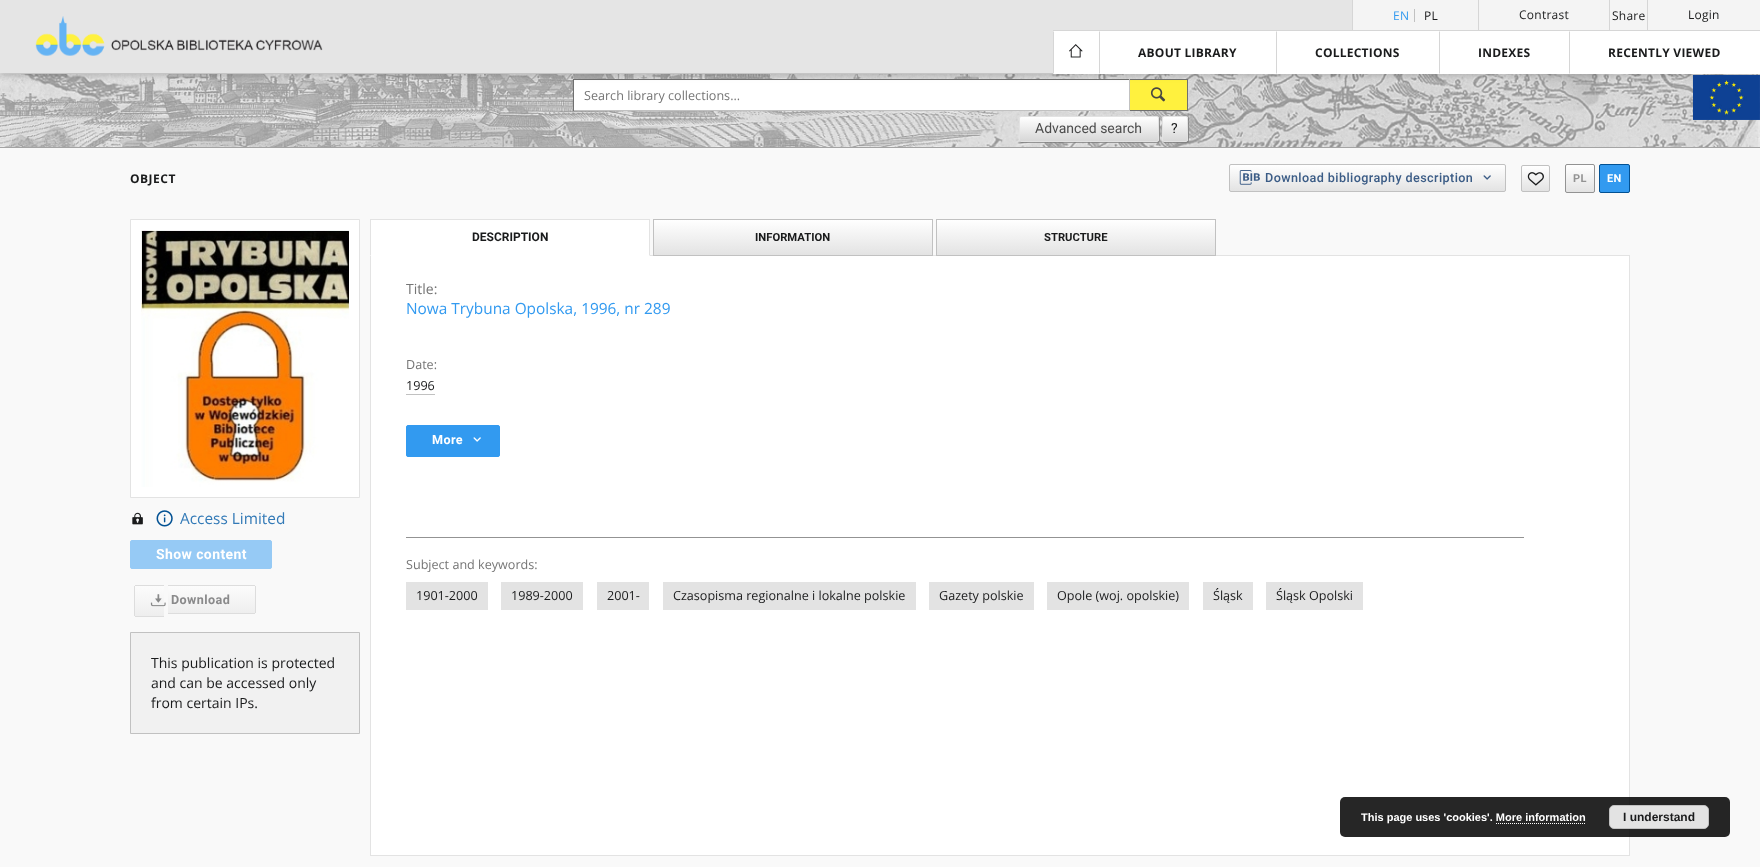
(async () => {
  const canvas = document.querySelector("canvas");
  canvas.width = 1760;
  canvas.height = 867;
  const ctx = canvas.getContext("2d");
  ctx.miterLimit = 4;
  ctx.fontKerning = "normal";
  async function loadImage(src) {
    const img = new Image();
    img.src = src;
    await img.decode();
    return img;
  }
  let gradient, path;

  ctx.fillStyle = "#f9f9f9";
  ctx.fillRect(0, 0, 1760, 867);
  ctx.fillStyle = "#f5f5f5";
  ctx.fillRect(0, 74, 1760, 73);
  ctx.drawImage(await loadImage("img/3.png"), 0, 74, 1760, 73);
  for (const [x, y, w, h, color] of [
    [0, 73, 1053, 1, "#e3e3e3"],
    [574, 80, 555, 30, "#ffffff"],
    [573, 79, 615, 1, "#707070"],
    [1129, 79, 1, 32, "#c1c1c1"],
    [573, 110, 557, 1, "#c1c1c1"],
    [573, 79, 1, 32, "#707070"],
    [1130, 80, 57, 30, "#fff13e"],
    [1187, 79, 1, 32, "#707070"],
  ]) {
    ctx.fillStyle = color;
    ctx.fillRect(x, y, w, h);
  }
  ctx.drawImage(await loadImage("img/4.png"), 1150, 87, 16, 15);
  ctx.fillStyle = "rgba(0, 0, 0, 0.08)";
  ctx.filter = "blur(5px)";
  ctx.beginPath();
  ctx.rect(0, 1, 1760, 73);
  ctx.fill();
  ctx.filter = "none";
  ctx.fillStyle = "rgba(0, 0, 0, 0.06)";
  ctx.filter = "blur(2.5px)";
  ctx.beginPath();
  ctx.rect(0, 4, 1760, 73);
  ctx.fill();
  ctx.filter = "none";
  ctx.filter = "blur(2px)";
  ctx.beginPath();
  ctx.rect(1, 3, 1758, 71);
  ctx.fill();
  ctx.filter = "none";
  for (const [x, y, w, h, color] of [
    [0, 0, 1352, 73, "#e5e5e5"],
    [1353, 0, 407, 30, "#f4f4f4"],
    [1352, 0, 1, 30, "#d6d6d6"],
    [1414, 9, 1, 13, "#c1c1c1"],
    [1478, 0, 1, 30, "#d6d6d6"],
    [1609, 0, 1, 30, "#d6d6d6"],
    [1647, 0, 1, 30, "#d6d6d6"],
  ]) {
    ctx.fillStyle = color;
    ctx.fillRect(x, y, w, h);
  }
  ctx.drawImage(await loadImage("img/1.png"), 35, 16, 288, 40);
  ctx.fillRect(1053, 30, 707, 1);
  ctx.fillStyle = "#ffffff";
  ctx.fillRect(1053, 31, 707, 43);
  ctx.fillStyle = "#d6d6d6";
  path = new Path2D("M1053 74V31L1054 32V73Z");
  ctx.fill(path);
  ctx.drawImage(await loadImage("img/2.png"), 1069, 44, 14, 14);
  path = new Path2D("M1099 74V31L1100 32V73Z");
  ctx.fill(path);
  path = new Path2D("M1276 74V31L1277 32V73Z");
  ctx.fill(path);
  path = new Path2D("M1439 74V31L1440 32V73Z");
  ctx.fill(path);
  path = new Path2D("M1569 74V31L1570 32V73Z");
  ctx.fill(path);
  ctx.fillStyle = "#a4a4a4";
  ctx.fillRect(0, 147, 1760, 1);
  ctx.fillStyle = "#707070";
  ctx.fillRect(1130, 110, 58, 1);
  ctx.fillStyle = "rgba(119, 119, 119, 0.7)";
  ctx.filter = "blur(0.5px)";
  ctx.beginPath();
  ctx.roundRect(1020, 117, 140, 26, 2);
  ctx.fill();
  ctx.filter = "none";
  ctx.save();
  ctx.beginPath();
  ctx.roundRect(1019, 116, 140, 26, 2);
  ctx.clip();
  gradient = ctx.createLinearGradient(1089, 117, 1089, 141);
  gradient.addColorStop(0, "#ffffff");
  gradient.addColorStop(1, "#d7d7d7");
  ctx.fillStyle = gradient;
  ctx.fillRect(1019, 117, 140, 24);
  ctx.restore();
  ctx.beginPath();
  ctx.roundRect(1019.5, 116.5, 139, 25, 1.5);
  ctx.strokeStyle = "#e2e2e2";
  ctx.stroke();
  ctx.filter = "blur(0.5px)";
  ctx.beginPath();
  ctx.roundRect(1163, 117, 26, 26, 2);
  ctx.fill();
  ctx.filter = "none";
  ctx.save();
  ctx.beginPath();
  ctx.roundRect(1162, 116, 26, 26, 2);
  ctx.clip();
  gradient = ctx.createLinearGradient(1175, 117, 1175, 141);
  gradient.addColorStop(0, "#ffffff");
  gradient.addColorStop(1, "#d7d7d7");
  ctx.fillStyle = gradient;
  ctx.fillRect(1162, 117, 26, 24);
  ctx.restore();
  ctx.beginPath();
  ctx.roundRect(1162.5, 116.5, 25, 25, 1.5);
  ctx.stroke();
  ctx.drawImage(await loadImage("img/5.png"), 1692, 75, 68, 45);
  ctx.save();
  ctx.beginPath();
  ctx.roundRect(1229, 164, 277, 28, 2);
  ctx.clip();
  gradient = ctx.createLinearGradient(1368, 165, 1368, 191);
  gradient.addColorStop(0, "#ffffff");
  gradient.addColorStop(1, "#e3e3e3");
  ctx.fillStyle = gradient;
  ctx.fillRect(1229, 165, 277, 26);
  ctx.restore();
  ctx.beginPath();
  ctx.roundRect(1229.5, 164.5, 276, 27, 1.5);
  ctx.strokeStyle = "#c1c1c1";
  ctx.stroke();
  ctx.drawImage(await loadImage("img/6.png"), 1239, 170, 21, 15);
  ctx.drawImage(await loadImage("img/7.png"), 1483, 175, 8, 5);
  ctx.save();
  ctx.beginPath();
  ctx.roundRect(1521, 165, 29, 27, 2);
  ctx.clip();
  gradient = ctx.createLinearGradient(1536, 166, 1536, 191);
  gradient.addColorStop(0, "#ffffff");
  gradient.addColorStop(1, "#e3e3e3");
  ctx.fillStyle = gradient;
  ctx.fillRect(1521, 166, 29, 25);
  ctx.restore();
  ctx.beginPath();
  ctx.roundRect(1521.5, 165.5, 28, 26, 1.5);
  ctx.stroke();
  ctx.drawImage(await loadImage("img/8.png"), 1527, 172, 17, 14);
  ctx.save();
  ctx.beginPath();
  ctx.roundRect(1565, 164, 30, 29, 2);
  ctx.clip();
  gradient = ctx.createLinearGradient(1580, 165, 1580, 192);
  gradient.addColorStop(0, "#ffffff");
  gradient.addColorStop(1, "#e3e3e3");
  ctx.fillStyle = gradient;
  ctx.fillRect(1565, 165, 30, 27);
  ctx.restore();
  ctx.beginPath();
  ctx.roundRect(1565.5, 164.5, 29, 28, 1.5);
  ctx.strokeStyle = "#939393";
  ctx.stroke();
  ctx.fillStyle = "#329af0";
  ctx.beginPath();
  ctx.roundRect(1599.5, 164.5, 30, 28, 1.5);
  ctx.fill();
  ctx.strokeStyle = "#025193";
  ctx.stroke();
  ctx.fillStyle = "#ffffff";
  ctx.beginPath();
  ctx.rect(130.5, 219.5, 229, 278);
  ctx.fill();
  ctx.strokeStyle = "#e3e3e3";
  ctx.stroke();
  ctx.drawImage(await loadImage("img/9.png"), 141, 230, 208, 257);
  ctx.drawImage(await loadImage("img/10.png"), 132, 512, 11, 13);
  ctx.drawImage(await loadImage("img/11.png"), 156, 510, 17, 17);
  ctx.fillStyle = "#96caf5";
  ctx.beginPath();
  ctx.roundRect(130.5, 540.5, 141, 28, 1.5);
  ctx.fill();
  ctx.strokeStyle = "#96caf5";
  ctx.stroke();
  gradient = ctx.createLinearGradient(150, 586, 150, 616);
  gradient.addColorStop(0, "#fcfcfc");
  gradient.addColorStop(1, "#eeeeee");
  ctx.fillStyle = gradient;
  ctx.fillRect(135, 586, 29, 30);
  for (const [x, y, w, h, color] of [
    [135, 585, 29, 1, "#dddddd"],
    [135, 616, 29, 1, "#dddddd"],
    [134, 586, 1, 30, "#dddddd"],
  ]) {
    ctx.fillStyle = color;
    ctx.fillRect(x, y, w, h);
  }
  gradient = ctx.createLinearGradient(212, 586, 212, 613);
  gradient.addColorStop(0, "#fcfcfc");
  gradient.addColorStop(1, "#eeeeee");
  ctx.fillStyle = gradient;
  ctx.fillRect(168, 586, 87, 27);
  for (const [x, y, w, h, color] of [
    [168, 585, 87, 1, "#dddddd"],
    [255, 586, 1, 27, "#dddddd"],
    [168, 613, 87, 1, "#dddddd"],
  ]) {
    ctx.fillStyle = color;
    ctx.fillRect(x, y, w, h);
  }
  ctx.drawImage(await loadImage("img/12.png"), 150, 594, 16, 13);
  ctx.fillStyle = "#f1f1f1";
  ctx.beginPath();
  ctx.rect(130.5, 632.5, 229, 101);
  ctx.fill();
  ctx.strokeStyle = "#c1c1c1";
  ctx.stroke();
  for (const [x, y, w, h, color] of [
    [650, 255, 980, 1, "#e3e3e3"],
    [370, 220, 280, 36, "#ffffff"],
    [370, 219, 280, 1, "#e3e3e3"],
  ]) {
    ctx.fillStyle = color;
    ctx.fillRect(x, y, w, h);
  }
  path = new Path2D("M650 219V256L649 255V220Z");
  ctx.fill(path);
  path = new Path2D("M370 256V219L371 220V255Z");
  ctx.fill(path);
  gradient = ctx.createLinearGradient(793, 220, 793, 255);
  gradient.addColorStop(0, "#ffffff");
  gradient.addColorStop(1, "#e3e3e3");
  ctx.fillStyle = gradient;
  ctx.fillRect(654, 220, 278, 35);
  ctx.strokeRect(653.5, 219.5, 279, 36);
  gradient = ctx.createLinearGradient(1076, 220, 1076, 255);
  gradient.addColorStop(0, "#ffffff");
  gradient.addColorStop(1, "#e3e3e3");
  ctx.fillStyle = gradient;
  ctx.fillRect(937, 220, 278, 35);
  ctx.strokeRect(936.5, 219.5, 279, 36);
  for (const [x, y, w, h, color] of [
    [371, 256, 1258, 599, "#ffffff"],
    [1629, 256, 1, 600, "#e3e3e3"],
    [370, 855, 1260, 1, "#e3e3e3"],
    [370, 256, 1, 600, "#e3e3e3"],
    [406, 394, 29, 1, "#c1c1c1"],
  ]) {
    ctx.fillStyle = color;
    ctx.fillRect(x, y, w, h);
  }
  ctx.fillStyle = "#329af0";
  ctx.beginPath();
  ctx.roundRect(406.5, 425.5, 93, 31, 1.5);
  ctx.fill();
  ctx.strokeStyle = "#329af0";
  ctx.stroke();
  ctx.drawImage(await loadImage("img/13.png"), 473, 437, 8, 5);
  for (const [x, y, w, h, color] of [
    [406, 537, 1118, 1, "#939393"],
    [406, 582, 82, 28, "#e3e3e3"],
    [501, 582, 82, 28, "#e3e3e3"],
    [597, 582, 52, 28, "#e3e3e3"],
    [663, 582, 253, 28, "#e3e3e3"],
    [929, 582, 105, 28, "#e3e3e3"],
    [1047, 582, 142, 28, "#e3e3e3"],
    [1203, 582, 50, 28, "#e3e3e3"],
    [1266, 582, 97, 28, "#e3e3e3"],
  ]) {
    ctx.fillStyle = color;
    ctx.fillRect(x, y, w, h);
  }
  ctx.fillStyle = "rgba(0, 0, 0, 0.85)";
  ctx.beginPath();
  ctx.roundRect(1340, 797, 390, 40, 5);
  ctx.fill();
  ctx.fillStyle = "#e3e3e3";
  ctx.beginPath();
  ctx.roundRect(1609.5, 805.5, 99, 23, 4.5);
  ctx.fill();
  ctx.strokeStyle = "#c1c1c1";
  ctx.stroke();
  path = new Path2D("M1496 823.5H1586");
  ctx.strokeStyle = "#ffffff";
  ctx.setLineDash([1, 1]);
  ctx.stroke(path);
  ctx.letterSpacing = "0.25px";
  ctx.font = "12px Open Sans";
  ctx.fillStyle = "#329af0";
  ctx.fillText("EN", 1393, 20);
  ctx.fillStyle = "#1a1b1c";
  for (const [text, x, y] of [
    ["PL", 1424, 20],
    ["Contrast", 1519, 19],
    ["Share", 1612, 20],
    ["Login", 1688, 19],
  ]) {
    ctx.fillText(text, x, y);
  }
  ctx.font = "bold 12px Open Sans";
  for (const [text, x, y] of [
    ["ABOUT LIBRARY", 1138, 57],
    ["COLLECTIONS", 1315, 57],
    ["INDEXES", 1478, 57],
    ["RECENTLY VIEWED", 1608, 57],
  ]) {
    ctx.fillText(text, x, y);
  }
  ctx.letterSpacing = "0px";
  ctx.font = "12.6px Open Sans";
  ctx.fillStyle = "#757575";
  ctx.fillText("Search library collections...", 584, 100);
  ctx.font = "14px Roboto";
  ctx.fillStyle = "#4c4c4c";
  ctx.fillText("Advanced search", 1035, 133);
  ctx.fillStyle = "#1a1b1c";
  ctx.fillText("?", 1171, 133);
  ctx.letterSpacing = "0.5px";
  ctx.font = "bold 12px Open Sans";
  ctx.fillText("OBJECT", 130, 183);
  ctx.letterSpacing = "0.4px";
  ctx.font = "500 12.6px Roboto";
  ctx.fillStyle = "#3b5c86";
  ctx.fillText("Download bibliography description", 1265, 182);
  ctx.font = "bold 11px Roboto";
  ctx.fillStyle = "#939393";
  ctx.fillText("PL", 1573, 182);
  ctx.fillStyle = "#ffffff";
  ctx.fillText("EN", 1607, 182);
  ctx.letterSpacing = "0px";
  ctx.font = "15.4px Open Sans";
  ctx.fillStyle = "#337ab7";
  ctx.fillText("Access Limited", 180, 524);
  ctx.letterSpacing = "0.4px";
  ctx.font = "bold 14px Roboto";
  ctx.fillStyle = "#ffffff";
  ctx.fillText("Show content", 156, 559);
  ctx.font = "bold 12.6px Roboto";
  ctx.fillStyle = "#8a8a8b";
  ctx.fillText("Download", 171, 604);
  ctx.letterSpacing = "0px";
  ctx.font = "14px Open Sans";
  ctx.fillStyle = "#1a1b1c";
  for (const [text, x, y] of [
    ["This publication is protected", 151, 668],
    ["and can be accessed only", 151, 688],
    ["from certain IPs.", 151, 708],
  ]) {
    ctx.fillText(text, x, y);
  }
  ctx.font = "bold 12px Roboto";
  ctx.fillText("DESCRIPTION", 472, 241);
  ctx.font = "bold 11.25px Roboto";
  ctx.fillText("INFORMATION", 755, 241);
  ctx.fillText("STRUCTURE", 1044, 241);
  ctx.font = "14px Open Sans";
  ctx.fillStyle = "#757575";
  ctx.fillText("Title:", 406, 294);
  ctx.font = "15.4px Open Sans";
  ctx.fillStyle = "#329af0";
  ctx.fillText("Nowa Trybuna Opolska, 1996, nr 289", 406, 314);
  ctx.font = "12.6px Open Sans";
  ctx.fillStyle = "#757575";
  ctx.fillText("Date:", 406, 369);
  ctx.fillStyle = "#1a1b1c";
  ctx.fillText("1996", 406, 390);
  ctx.letterSpacing = "0.4px";
  ctx.font = "bold 12.6px Roboto";
  ctx.fillStyle = "#ffffff";
  ctx.fillText("More", 432, 444);
  ctx.letterSpacing = "0px";
  ctx.font = "12.6px Open Sans";
  ctx.fillStyle = "#757575";
  ctx.fillText("Subject and keywords:", 406, 569);
  ctx.fillStyle = "#1a1b1c";
  for (const [text, x, y] of [
    ["1901-2000", 416, 600],
    ["1989-2000", 511, 600],
    ["2001-", 607, 600],
    ["Czasopisma regionalne i lokalne polskie", 673, 600],
    ["Gazety polskie", 939, 600],
    ["Opole (woj. opolskie)", 1057, 600],
    ["Śląsk", 1213, 600],
    ["Śląsk Opolski", 1276, 600],
  ]) {
    ctx.fillText(text, x, y);
  }
  ctx.font = "bold 11px Liberation Sans";
  ctx.fillStyle = "#ffffff";
  ctx.fillText("This page uses 'cookies'. More information", 1361, 821);
  ctx.font = "bold 12px Liberation Sans";
  ctx.fillStyle = "#1a1b1c";
  ctx.fillText("I understand", 1623, 821);
})();
